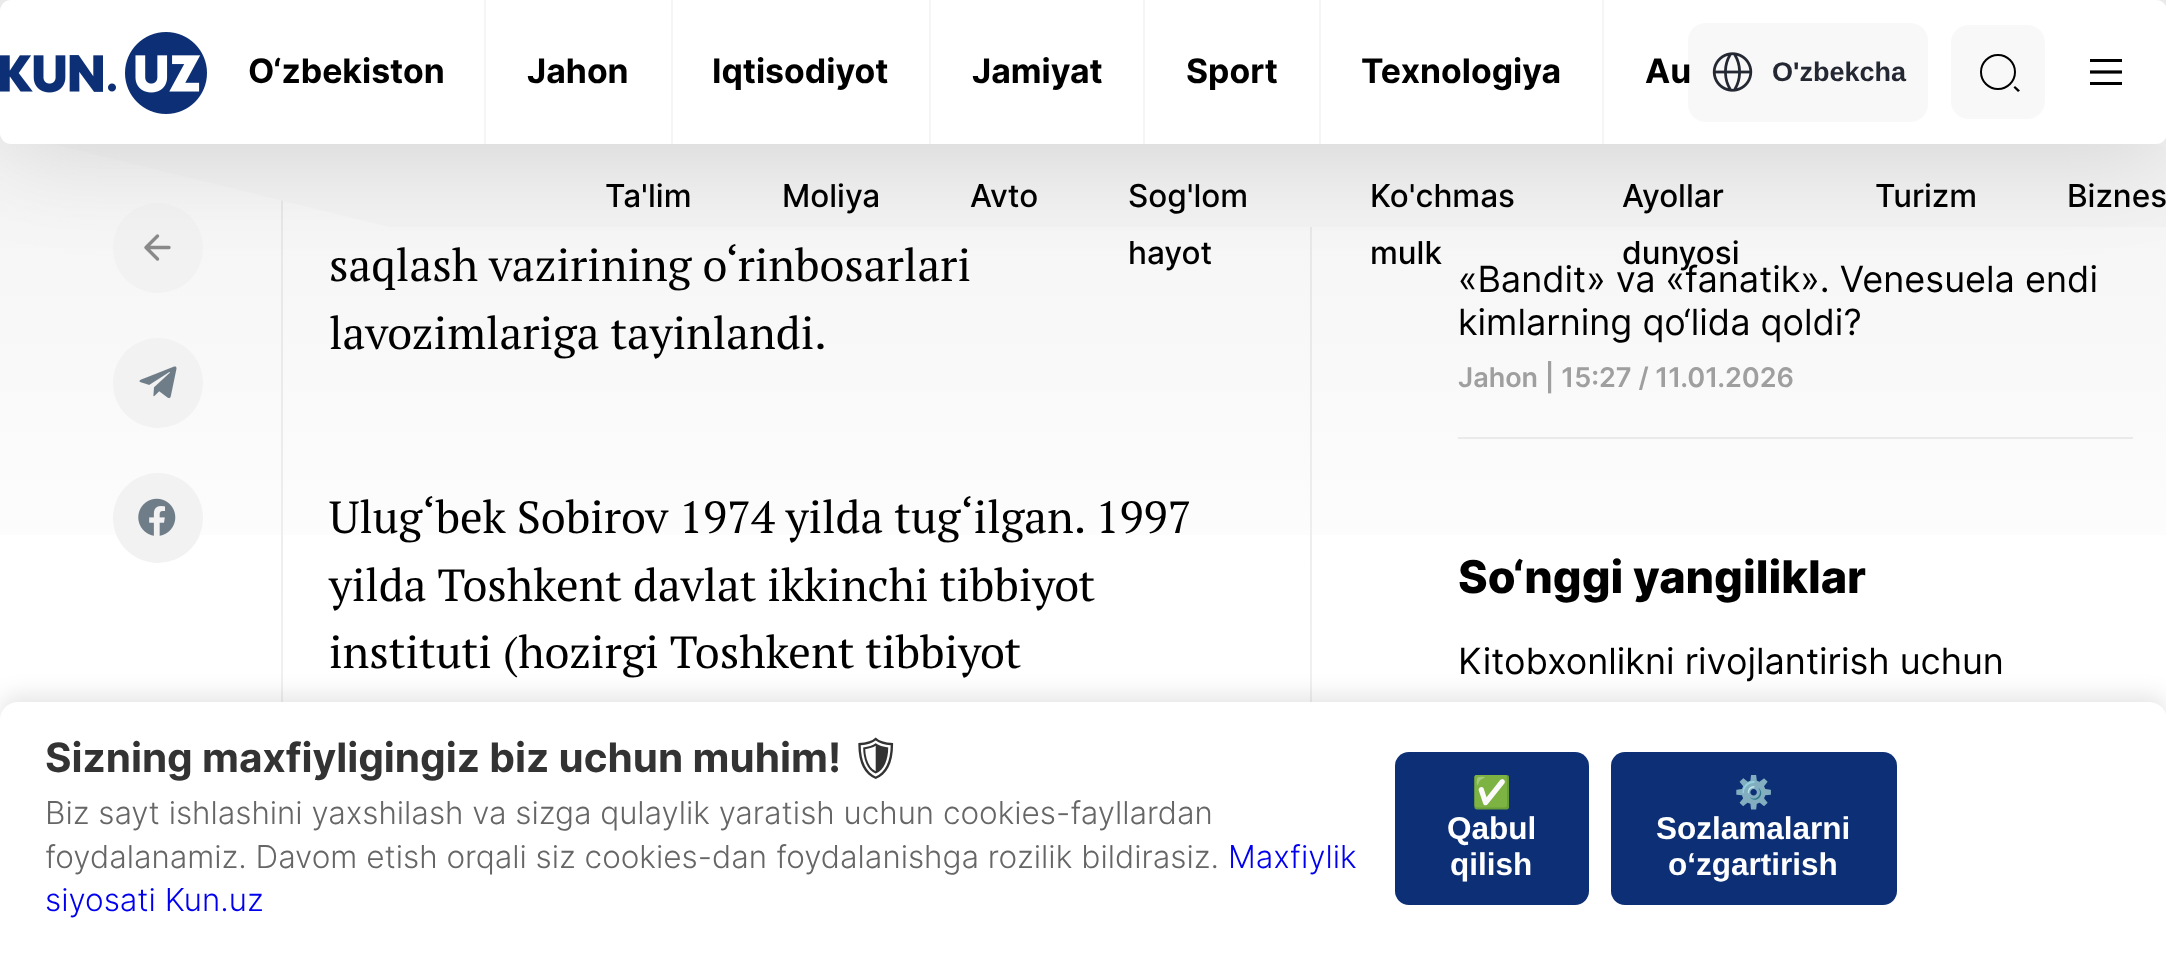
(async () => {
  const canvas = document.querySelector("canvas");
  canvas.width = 2166;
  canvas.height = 953;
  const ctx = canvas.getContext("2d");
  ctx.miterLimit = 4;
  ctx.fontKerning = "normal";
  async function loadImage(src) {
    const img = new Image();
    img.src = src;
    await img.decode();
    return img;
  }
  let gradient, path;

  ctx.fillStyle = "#ffffff";
  ctx.fillRect(0, 0, 2166, 953);
  ctx.fillStyle = "#f0f0f0";
  ctx.fillRect(281, 650, 2, 52);
  ctx.fillRect(1310, 650, 2, 52);
  gradient = ctx.createLinearGradient(1083, -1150, 1083, 650);
  gradient.addColorStop(0, "#d8d8d8");
  gradient.addColorStop(1, "#ffffff");
  ctx.fillStyle = gradient;
  ctx.fillRect(0, 0, 2166, 535);
  gradient = ctx.createLinearGradient(1083, -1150, 1083, 650);
  gradient.addColorStop(0, "#cbcbcb");
  gradient.addColorStop(1, "#f0f0f0");
  ctx.fillStyle = gradient;
  ctx.fillRect(281, 200, 2, 450);
  ctx.fillRect(1310, 227, 2, 423);
  ctx.fillStyle = "#f2f2f2";
  ctx.beginPath();
  ctx.arc(158, 248, 45, 0, Math.PI * 2);
  ctx.fill();
  path = new Path2D("M52 144L389 227H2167V155C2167 149 2162 144 2156 144Z");
  ctx.fill(path);
  path = new Path2D("M169 247.5H146M157.5 259L146 247.5L157.5 236");
  ctx.strokeStyle = "#8a8a8a";
  ctx.lineWidth = 3.4;
  ctx.lineCap = "round";
  ctx.lineJoin = "round";
  ctx.stroke(path);
  ctx.fillStyle = "rgba(0, 0, 0, 0.12)";
  ctx.filter = "blur(49.5px)";
  ctx.beginPath();
  ctx.roundRect(0, 9, 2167, 144, 11);
  ctx.fill();
  ctx.filter = "none";
  ctx.fillStyle = "#ffffff";
  ctx.beginPath();
  ctx.roundRect(0, 0, 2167, 144, 11);
  ctx.fill();
  ctx.drawImage(await loadImage("img/1.png"), 0, 32, 207, 82);
  for (const [x, y, w, h, color] of [
    [484, 0, 2, 144, "#f5f5f5"],
    [671, 0, 2, 144, "#f5f5f5"],
    [929, 0, 2, 144, "#f5f5f5"],
    [1143, 0, 2, 144, "#f5f5f5"],
    [1319, 0, 2, 144, "#f5f5f5"],
    [1602, 0, 2, 144, "#f5f5f5"],
  ]) {
    ctx.fillStyle = color;
    ctx.fillRect(x, y, w, h);
  }
  ctx.fillStyle = "#f8f8f8";
  ctx.beginPath();
  ctx.roundRect(1688, 23, 240, 99, 18);
  ctx.fill();
  ctx.drawImage(await loadImage("img/2.png"), 1712, 52, 41, 40);
  ctx.beginPath();
  ctx.roundRect(1951, 25, 94, 94, 18);
  ctx.fill();
  ctx.beginPath();
  ctx.arc(1998, 72, 17, 0, Math.PI * 2);
  ctx.strokeStyle = "#000000";
  ctx.lineWidth = 2;
  ctx.stroke();
  ctx.fillStyle = "#000000";
  path = new Path2D("M2015 86L2020 90.5L2018 92L2013.5 87.5Z");
  ctx.fill(path);
  ctx.fillRect(2090, 59, 32, 3);
  path = new Path2D("M2090 72H2122");
  ctx.lineWidth = 3.2;
  ctx.lineCap = "butt";
  ctx.lineJoin = "miter";
  ctx.stroke(path);
  ctx.fillRect(2090, 82, 32, 3);
  ctx.fillStyle = "#f2f2f2";
  ctx.beginPath();
  ctx.arc(158, 383, 45, 0, Math.PI * 2);
  ctx.fill();
  ctx.drawImage(await loadImage("img/3.png"), 139, 366, 38, 33);
  ctx.beginPath();
  ctx.arc(158, 518, 45, 0, Math.PI * 2);
  ctx.fill();
  ctx.drawImage(await loadImage("img/4.png"), 138, 498, 38, 38);
  ctx.fillStyle = "#eaeaea";
  ctx.fillRect(1458, 437, 675, 2);
  ctx.fillStyle = "rgba(0, 0, 0, 0.1)";
  ctx.filter = "blur(11px)";
  ctx.beginPath();
  ctx.roundRect(0, 695, 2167, 252, 18);
  ctx.fill();
  ctx.filter = "none";
  ctx.fillStyle = "#ffffff";
  path = new Path2D("M18 702H2149C2159 702 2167 710 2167 720V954H0V720C0 710 8 702 18 702Z");
  ctx.fill(path);
  ctx.fillStyle = "#0c2f75";
  ctx.beginPath();
  ctx.roundRect(1395, 752, 194, 153, 14);
  ctx.fill();
  ctx.beginPath();
  ctx.roundRect(1611, 752, 286, 153, 14);
  ctx.fill();
  ctx.font = "bold 33.75px Inter";
  ctx.fillStyle = "#000000";
  for (const [text, x, y] of [
    ["O‘zbekiston", 248, 83],
    ["Jahon", 527, 83],
    ["Iqtisodiyot", 712, 83],
    ["Jamiyat", 972, 83],
    ["Sport", 1186, 83],
    ["Texnologiya", 1361, 83],
    ["Au", 1645, 83],
  ]) {
    ctx.fillText(text, x, y);
  }
  ctx.font = "bold 27px Liberation Sans";
  ctx.fillStyle = "#242833";
  ctx.fillText("O'zbekcha", 1772, 81);
  ctx.font = "500 31.5px Inter";
  ctx.fillStyle = "#000000";
  for (const [text, x, y] of [
    ["Ta'lim", 605, 207],
    ["Moliya", 782, 207],
    ["Avto", 970, 207],
    ["Sog'lom", 1128, 207],
    ["hayot", 1128, 264],
    ["Ko'chmas", 1370, 207],
    ["mulk", 1370, 264],
    ["Ayollar", 1622, 207],
    ["dunyosi", 1622, 264],
    ["Turizm", 1875, 207],
    ["Biznes", 2067, 207],
  ]) {
    ctx.fillText(text, x, y);
  }
  ctx.font = "45px PT Serif";
  for (const [text, x, y] of [
    ["saqlash vazirining o‘rinbosarlari", 329, 281],
    ["lavozimlariga tayinlandi.", 329, 349],
    ["Ulug‘bek Sobirov 1974 yilda tug‘ilgan. 1997", 329, 533],
    ["yilda Toshkent davlat ikkinchi tibbiyot", 329, 601],
    ["instituti (hozirgi Toshkent tibbiyot", 329, 668],
  ]) {
    ctx.fillText(text, x, y);
  }
  ctx.font = "36px Inter";
  ctx.fillText("«Bandit» va «fanatik». Venesuela endi", 1458, 292);
  ctx.fillText("kimlarning qo‘lida qoldi?", 1458, 335);
  ctx.font = "600 27px Inter";
  ctx.fillStyle = "#9f9f9f";
  ctx.fillText("Jahon | 15:27 / 11.01.2026", 1458, 387);
  ctx.font = "800 45px Inter";
  ctx.fillStyle = "#000000";
  ctx.fillText("So‘nggi yangiliklar", 1458, 593);
  ctx.font = "36px Inter";
  ctx.fillText("Kitobxonlikni rivojlantirish uchun", 1458, 674);
  ctx.font = "bold 40.5px Inter";
  ctx.fillStyle = "#333333";
  ctx.fillText("Sizning maxfiyligingiz biz uchun muhim!", 45, 772);
  ctx.font = "bold 40.5px Noto Emoji";
  ctx.fillText("🛡", 850, 772);
  ctx.font = "300 31.5px Inter";
  ctx.fillStyle = "#666666";
  ctx.fillText("Biz sayt ishlashini yaxshilash va sizga qulaylik yaratish uchun cookies-fayllardan", 45, 824);
  ctx.fillText("foydalanamiz. Davom etish orqali siz cookies-dan foydalanishga rozilik bildirasiz.", 45, 868);
  ctx.fillStyle = "#0000ee";
  ctx.fillText("Maxfiylik", 1228, 868);
  ctx.fillText("siyosati Kun.uz", 45, 911);
  ctx.font = "bold 31.5px Noto Color Emoji";
  ctx.fillStyle = "#ffffff";
  ctx.fillText("✅", 1472, 803);
  ctx.font = "bold 31.5px Liberation Sans";
  ctx.fillText("Qabul", 1447, 839);
  ctx.fillText("qilish", 1450, 875);
  ctx.font = "bold 31.5px Noto Color Emoji";
  ctx.fillText("⚙️", 1734, 803);
  ctx.font = "bold 31.5px Liberation Sans";
  ctx.fillText("Sozlamalarni", 1656, 839);
  ctx.fillText("o‘zgartirish", 1668, 875);
})();
